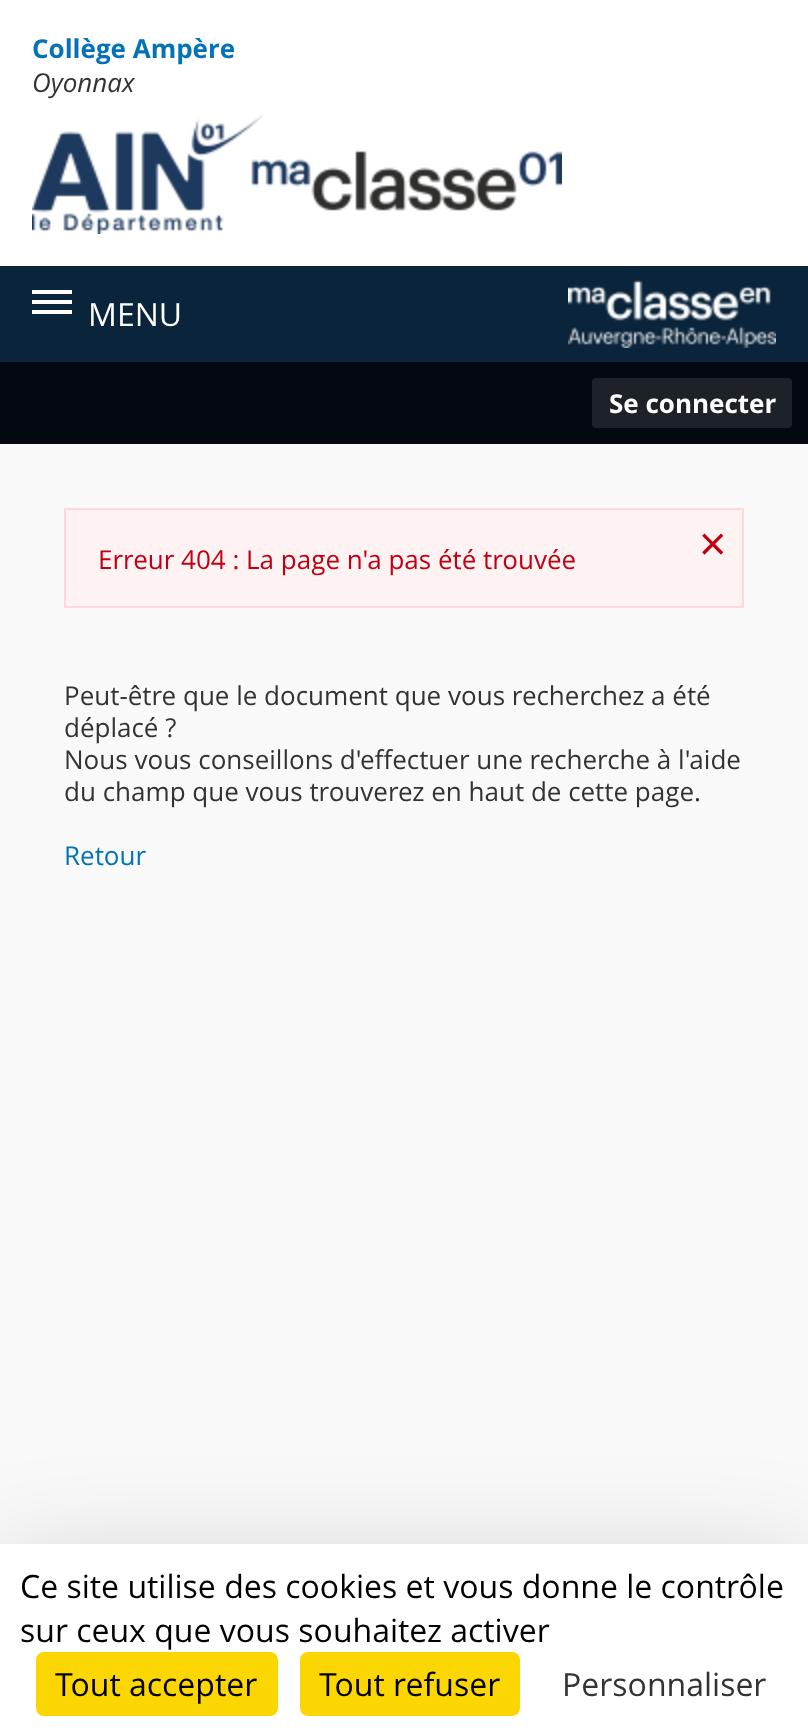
(async () => {
  const canvas = document.querySelector("canvas");
  canvas.width = 808;
  canvas.height = 1736;
  const ctx = canvas.getContext("2d");
  ctx.miterLimit = 4;
  ctx.fontKerning = "normal";
  async function loadImage(src) {
    const img = new Image();
    img.src = src;
    await img.decode();
    return img;
  }

  ctx.fillStyle = "#ffffff";
  ctx.fillRect(0, 0, 808, 1736);
  ctx.drawImage(await loadImage("img/1.png"), 32, 114, 530, 120);
  ctx.fillStyle = "#0a243b";
  ctx.fillRect(0, 266, 808, 96);
  ctx.drawImage(await loadImage("img/2.png"), 568, 280, 208, 68);
  for (const [x, y, w, h, color] of [
    [32, 290, 40, 4, "#ffffff"],
    [32, 300, 40, 4, "#ffffff"],
    [32, 310, 40, 4, "#ffffff"],
    [0, 362, 808, 82, "#03090f"],
  ]) {
    ctx.fillStyle = color;
    ctx.fillRect(x, y, w, h);
  }
  ctx.fillStyle = "#1c2227";
  ctx.beginPath();
  ctx.roundRect(592, 378, 200, 50, 4);
  ctx.fill();
  ctx.fillStyle = "#f9f9f9";
  ctx.fillRect(0, 444, 808, 1100);
  ctx.fillStyle = "#fff2f3";
  ctx.beginPath();
  ctx.rect(65, 509, 678, 98);
  ctx.fill();
  ctx.strokeStyle = "#ffd8dc";
  ctx.lineWidth = 2;
  ctx.stroke();
  ctx.fillStyle = "rgba(0, 0, 0, 0.25)";
  ctx.filter = "blur(60px)";
  ctx.beginPath();
  ctx.rect(0, 1584, 808, 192);
  ctx.fill();
  ctx.filter = "none";
  ctx.fillStyle = "#ffffff";
  ctx.fillRect(0, 1544, 808, 192);
  ctx.fillStyle = "#fbd600";
  ctx.beginPath();
  ctx.roundRect(36, 1652, 242, 64, 8);
  ctx.fill();
  ctx.beginPath();
  ctx.roundRect(300, 1652, 220, 64, 8);
  ctx.fill();
  ctx.font = "bold 26px Open Sans";
  ctx.fillStyle = "#0372b7";
  ctx.fillText("Collège Ampère", 32, 58);
  ctx.font = "italic 26px Open Sans";
  ctx.fillStyle = "#333333";
  ctx.fillText("Oyonnax", 32, 92);
  ctx.font = "32px Open Sans";
  ctx.fillStyle = "#ffffff";
  ctx.fillText("MENU", 88, 326);
  ctx.font = "bold 26px Open Sans";
  ctx.fillText("Se connecter", 609, 413);
  ctx.font = "48px Open Sans";
  ctx.fillStyle = "#bf0013";
  ctx.fillText("×", 699, 561);
  ctx.font = "26px Open Sans";
  ctx.fillText("Erreur 404 : La page n'a pas été trouvée", 98, 569);
  ctx.fillStyle = "#333333";
  for (const [text, x, y] of [
    ["Peut-être que le document que vous recherchez a été", 64, 705],
    ["déplacé ?", 64, 737],
    ["Nous vous conseillons d'effectuer une recherche à l'aide", 64, 769],
    ["du champ que vous trouverez en haut de cette page.", 64, 801],
  ]) {
    ctx.fillText(text, x, y);
  }
  ctx.fillStyle = "#0372b7";
  ctx.fillText("Retour", 64, 865);
  ctx.font = "32px Open Sans";
  ctx.fillStyle = "#000000";
  for (const [text, x, y] of [
    ["Ce site utilise des cookies et vous donne le contrôle", 20, 1598],
    ["sur ceux que vous souhaitez activer", 20, 1642],
    ["Tout accepter", 55, 1696],
    ["Tout refuser", 319, 1696],
  ]) {
    ctx.fillText(text, x, y);
  }
  ctx.fillStyle = "#333333";
  ctx.fillText("Personnaliser", 562, 1696);
})();
